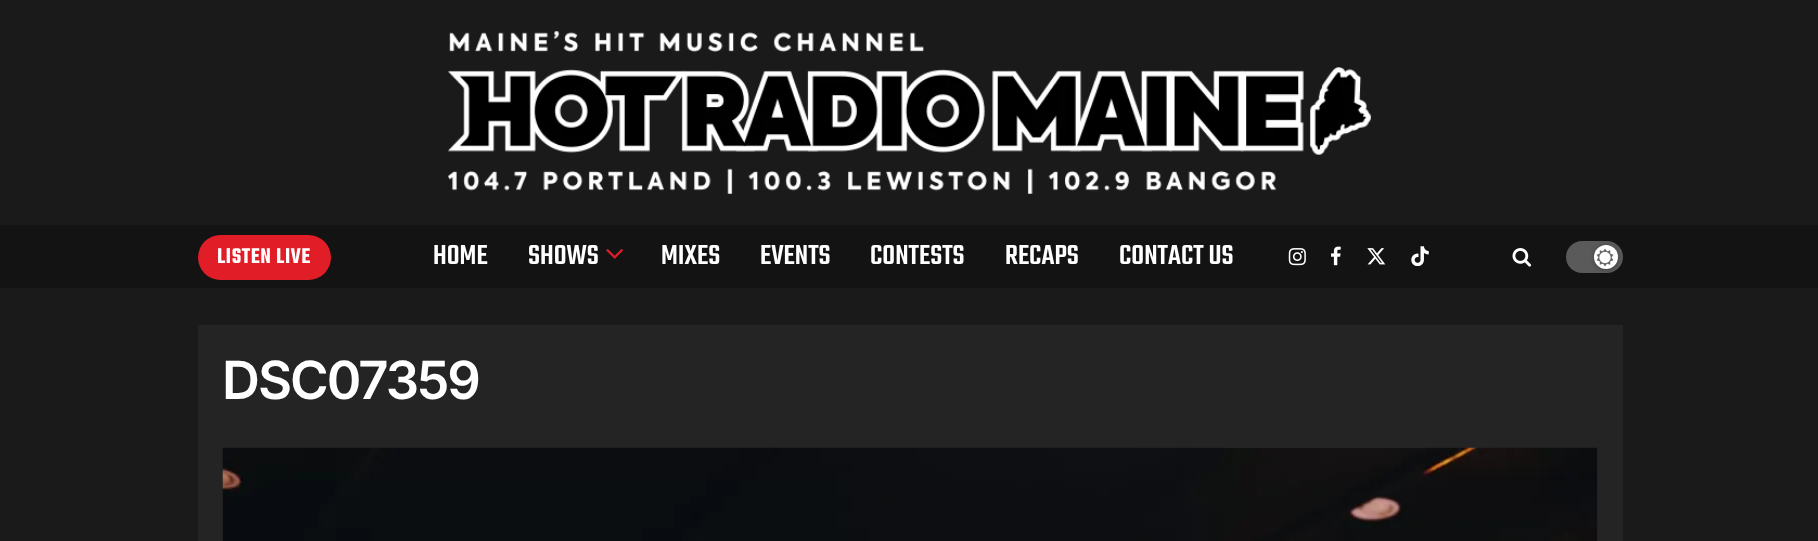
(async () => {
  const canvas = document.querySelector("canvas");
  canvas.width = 1818;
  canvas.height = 541;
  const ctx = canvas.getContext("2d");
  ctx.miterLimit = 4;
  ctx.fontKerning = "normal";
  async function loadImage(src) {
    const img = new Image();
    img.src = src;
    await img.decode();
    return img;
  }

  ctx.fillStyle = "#1a1a1a";
  ctx.fillRect(0, 0, 1818, 541);
  ctx.drawImage(await loadImage("img/1.png"), 447, 31, 924, 163);
  ctx.fillStyle = "#131313";
  ctx.fillRect(0, 225, 1818, 63);
  ctx.fillStyle = "#e11d28";
  ctx.beginPath();
  ctx.roundRect(198, 235, 133, 45, 22.5);
  ctx.fill();
  ctx.drawImage(await loadImage("img/2.png"), 606, 249, 17, 10);
  ctx.drawImage(await loadImage("img/3.png"), 1288, 248, 18, 18);
  ctx.drawImage(await loadImage("img/4.png"), 1331, 246, 10, 20);
  ctx.drawImage(await loadImage("img/5.png"), 1367, 248, 19, 17);
  ctx.drawImage(await loadImage("img/6.png"), 1411, 246, 18, 20);
  ctx.drawImage(await loadImage("img/7.png"), 1512, 248, 20, 19);
  ctx.fillStyle = "#5a5a5a";
  ctx.beginPath();
  ctx.roundRect(1566, 241, 57, 32, 16);
  ctx.fill();
  ctx.fillStyle = "rgba(0, 0, 0, 0.3)";
  ctx.filter = "blur(2px)";
  ctx.beginPath();
  ctx.roundRect(1594, 246, 24, 24, 12);
  ctx.fill();
  ctx.filter = "none";
  ctx.fillStyle = "#ffffff";
  ctx.beginPath();
  ctx.arc(1606, 257, 12, 0, Math.PI * 2);
  ctx.fill();
  ctx.drawImage(await loadImage("img/8.png"), 1596, 248, 18, 19);
  ctx.fillStyle = "#242424";
  ctx.fillRect(198, 325, 1425, 216);
  ctx.fillStyle = "#282828";
  ctx.fillRect(1597, 448, 1, 93);
  ctx.drawImage(await loadImage("img/10.png"), 1137, 447, 351, 1);
  ctx.drawImage(await loadImage("img/9.png"), 222, 447, 1376, 94);
  ctx.letterSpacing = "1.1px";
  ctx.font = "bold 22.5px Teko";
  ctx.fillStyle = "#ffffff";
  ctx.fillText("LISTEN LIVE", 217, 263);
  ctx.letterSpacing = "0px";
  ctx.font = "300 30px Teko";
  for (const [text, x, y] of [
    ["HOME", 433, 264],
    ["SHOWS", 528, 264],
    ["MIXES", 661, 264],
    ["EVENTS", 760, 264],
    ["CONTESTS", 870, 264],
    ["RECAPS", 1005, 264],
    ["CONTACT US", 1119, 264],
  ]) {
    ctx.fillText(text, x, y);
  }
  ctx.letterSpacing = "-2px";
  ctx.font = "600 52.5px Inter";
  ctx.fillText("DSC07359", 222, 399);
})();
